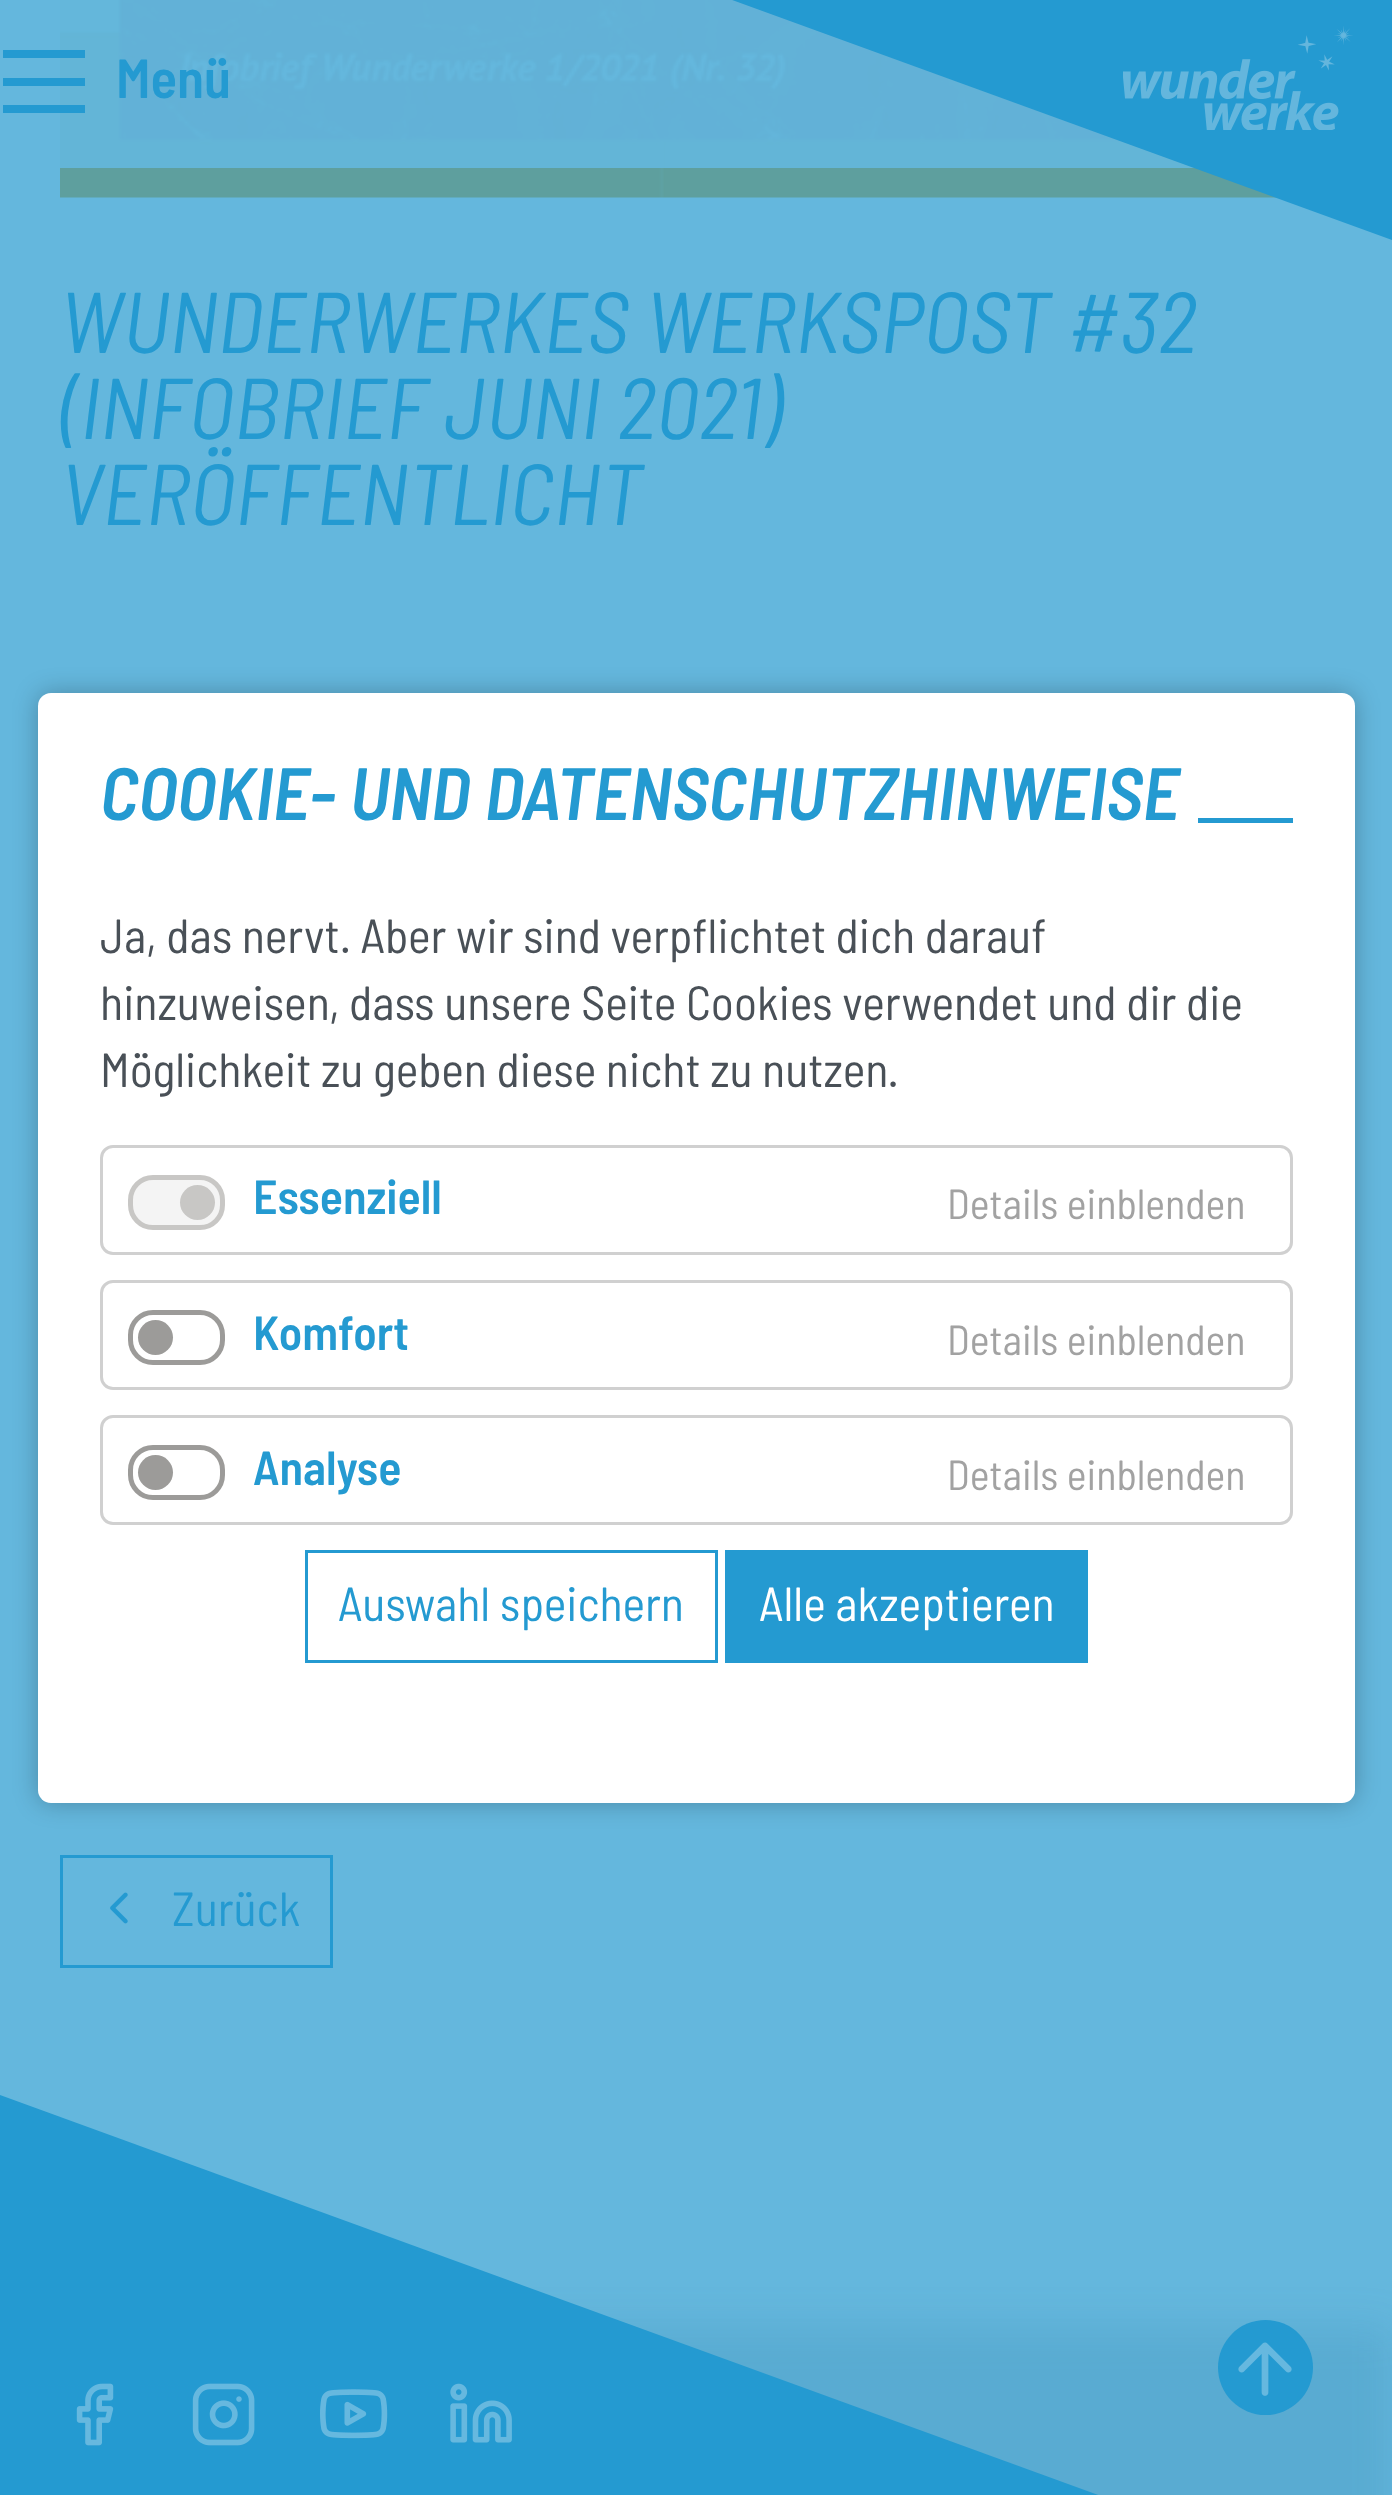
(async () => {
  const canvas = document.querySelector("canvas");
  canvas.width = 1392;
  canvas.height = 2495;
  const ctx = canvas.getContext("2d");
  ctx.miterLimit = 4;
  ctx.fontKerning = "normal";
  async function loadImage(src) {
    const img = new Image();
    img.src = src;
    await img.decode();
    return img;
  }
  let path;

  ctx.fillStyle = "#64b7dd";
  ctx.fillRect(0, 0, 1392, 2495);
  ctx.drawImage(await loadImage("img/2.png"), 60, 0, 1217, 198);
  for (const [x, y, w, h, color] of [
    [60, 0, 1134, 168, "rgba(100, 183, 221, 0.9)"],
    [3, 50, 82, 8, "#249ad1"],
    [3, 78, 82, 8, "#249ad1"],
    [3, 105, 82, 8, "#249ad1"],
  ]) {
    ctx.fillStyle = color;
    ctx.fillRect(x, y, w, h);
  }
  path = new Path2D("M-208-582L1392 0V240L-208-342Z");
  ctx.fill(path);
  ctx.drawImage(await loadImage("img/1.png"), 1123, 26, 230, 104);
  ctx.strokeStyle = "#249ad1";
  ctx.lineWidth = 3;
  ctx.strokeRect(61.5, 1856.5, 270, 110);
  ctx.drawImage(await loadImage("img/3.png"), 110, 1892, 18, 32);
  ctx.fillStyle = "rgba(25, 108, 146, 0.15)";
  ctx.filter = "blur(20px)";
  ctx.beginPath();
  ctx.rect(0, 2328, 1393, 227);
  ctx.fill();
  ctx.filter = "none";
  ctx.fillStyle = "#249ad1";
  path = new Path2D("M0 2095L1392 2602V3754L0 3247Z");
  ctx.fill(path);
  ctx.drawImage(await loadImage("img/4.png"), 76, 2383, 38, 63);
  ctx.drawImage(await loadImage("img/5.png"), 192, 2383, 63, 63);
  ctx.drawImage(await loadImage("img/6.png"), 320, 2389, 68, 50);
  ctx.drawImage(await loadImage("img/7.png"), 450, 2383, 62, 60);
  ctx.beginPath();
  ctx.arc(1265.5, 2367.5, 47.5, 0, Math.PI * 2);
  ctx.fill();
  ctx.drawImage(await loadImage("img/8.png"), 1238, 2342, 54, 54);
  ctx.fillStyle = "rgba(0, 0, 0, 0.25)";
  ctx.filter = "blur(12.5px)";
  ctx.beginPath();
  ctx.roundRect(38, 693, 1317, 1110, 13);
  ctx.fill();
  ctx.filter = "none";
  ctx.fillStyle = "#ffffff";
  ctx.beginPath();
  ctx.roundRect(38, 693, 1317, 1110, 13);
  ctx.fill();
  ctx.fillStyle = "#249ad1";
  ctx.fillRect(1198, 818, 95, 5);
  ctx.beginPath();
  ctx.roundRect(101.5, 1146.5, 1190, 107, 11.5);
  ctx.strokeStyle = "#d0d0d0";
  ctx.stroke();
  ctx.fillStyle = "#f4f4f4";
  ctx.beginPath();
  ctx.roundRect(130.5, 1177.5, 92, 50, 22.5);
  ctx.fill();
  ctx.strokeStyle = "#c8c7c5";
  ctx.lineWidth = 5;
  ctx.stroke();
  ctx.fillStyle = "#c8c7c5";
  ctx.beginPath();
  ctx.arc(197.5, 1202.5, 17.5, 0, Math.PI * 2);
  ctx.fill();
  ctx.beginPath();
  ctx.roundRect(101.5, 1281.5, 1190, 107, 11.5);
  ctx.strokeStyle = "#d0d0d0";
  ctx.lineWidth = 3;
  ctx.stroke();
  ctx.beginPath();
  ctx.roundRect(130.5, 1312.5, 92, 50, 22.5);
  ctx.strokeStyle = "#9c9b99";
  ctx.lineWidth = 5;
  ctx.stroke();
  ctx.fillStyle = "#9c9b99";
  ctx.beginPath();
  ctx.arc(155.5, 1337.5, 17.5, 0, Math.PI * 2);
  ctx.fill();
  ctx.beginPath();
  ctx.roundRect(101.5, 1416.5, 1190, 107, 11.5);
  ctx.strokeStyle = "#d0d0d0";
  ctx.lineWidth = 3;
  ctx.stroke();
  ctx.beginPath();
  ctx.roundRect(130.5, 1447.5, 92, 50, 22.5);
  ctx.strokeStyle = "#9c9b99";
  ctx.lineWidth = 5;
  ctx.stroke();
  ctx.beginPath();
  ctx.arc(155.5, 1472.5, 17.5, 0, Math.PI * 2);
  ctx.fill();
  ctx.strokeStyle = "#249ad1";
  ctx.lineWidth = 3;
  ctx.strokeRect(306.5, 1551.5, 410, 110);
  ctx.fillStyle = "#249ad1";
  ctx.fillRect(725, 1550, 363, 113);
  ctx.font = "600 55px Barlow Semi Condensed";
  ctx.fillText("Menü", 116, 98);
  ctx.font = "italic 86.25px Barlow Semi Condensed";
  for (const [text, x, y] of [
    ["WUNDERWERKES WERKSPOST #32", 60, 353],
    ["(INFOBRIEF JUNI 2021)", 60, 439],
    ["VERÖFFENTLICHT", 60, 525],
  ]) {
    ctx.fillText(text, x, y);
  }
  ctx.font = "48px Barlow Semi Condensed";
  ctx.fillText("Zurück", 172, 1926);
  ctx.font = "italic 600 73.8px Barlow Semi Condensed";
  ctx.fillText("COOKIE- UND DATENSCHUTZHINWEISE", 100, 820);
  ctx.font = "48px Barlow Semi Condensed";
  ctx.fillStyle = "#495057";
  for (const [text, x, y] of [
    ["Ja, das nervt. Aber wir sind verpflichtet dich darauf", 100, 953],
    ["hinzuweisen, dass unsere Seite Cookies verwendet und dir die", 100, 1020],
    ["Möglichkeit zu geben diese nicht zu nutzen.", 100, 1087],
  ]) {
    ctx.fillText(text, x, y);
  }
  ctx.font = "600 48px Barlow Semi Condensed";
  ctx.fillStyle = "#249ad1";
  ctx.fillText("Essenziell", 253, 1214);
  ctx.font = "42px Barlow Semi Condensed";
  ctx.fillStyle = "#a2a2a2";
  ctx.fillText("Details einblenden", 947, 1219);
  ctx.font = "600 48px Barlow Semi Condensed";
  ctx.fillStyle = "#249ad1";
  ctx.fillText("Komfort", 253, 1350);
  ctx.font = "42px Barlow Semi Condensed";
  ctx.fillStyle = "#a2a2a2";
  ctx.fillText("Details einblenden", 947, 1355);
  ctx.font = "600 48px Barlow Semi Condensed";
  ctx.fillStyle = "#249ad1";
  ctx.fillText("Analyse", 253, 1485);
  ctx.font = "42px Barlow Semi Condensed";
  ctx.fillStyle = "#a2a2a2";
  ctx.fillText("Details einblenden", 947, 1490);
  ctx.font = "48px Barlow Semi Condensed";
  ctx.fillStyle = "#249ad1";
  ctx.fillText("Auswahl speichern", 338, 1621);
  ctx.fillStyle = "#ffffff";
  ctx.fillText("Alle akzeptieren", 759, 1621);
})();
